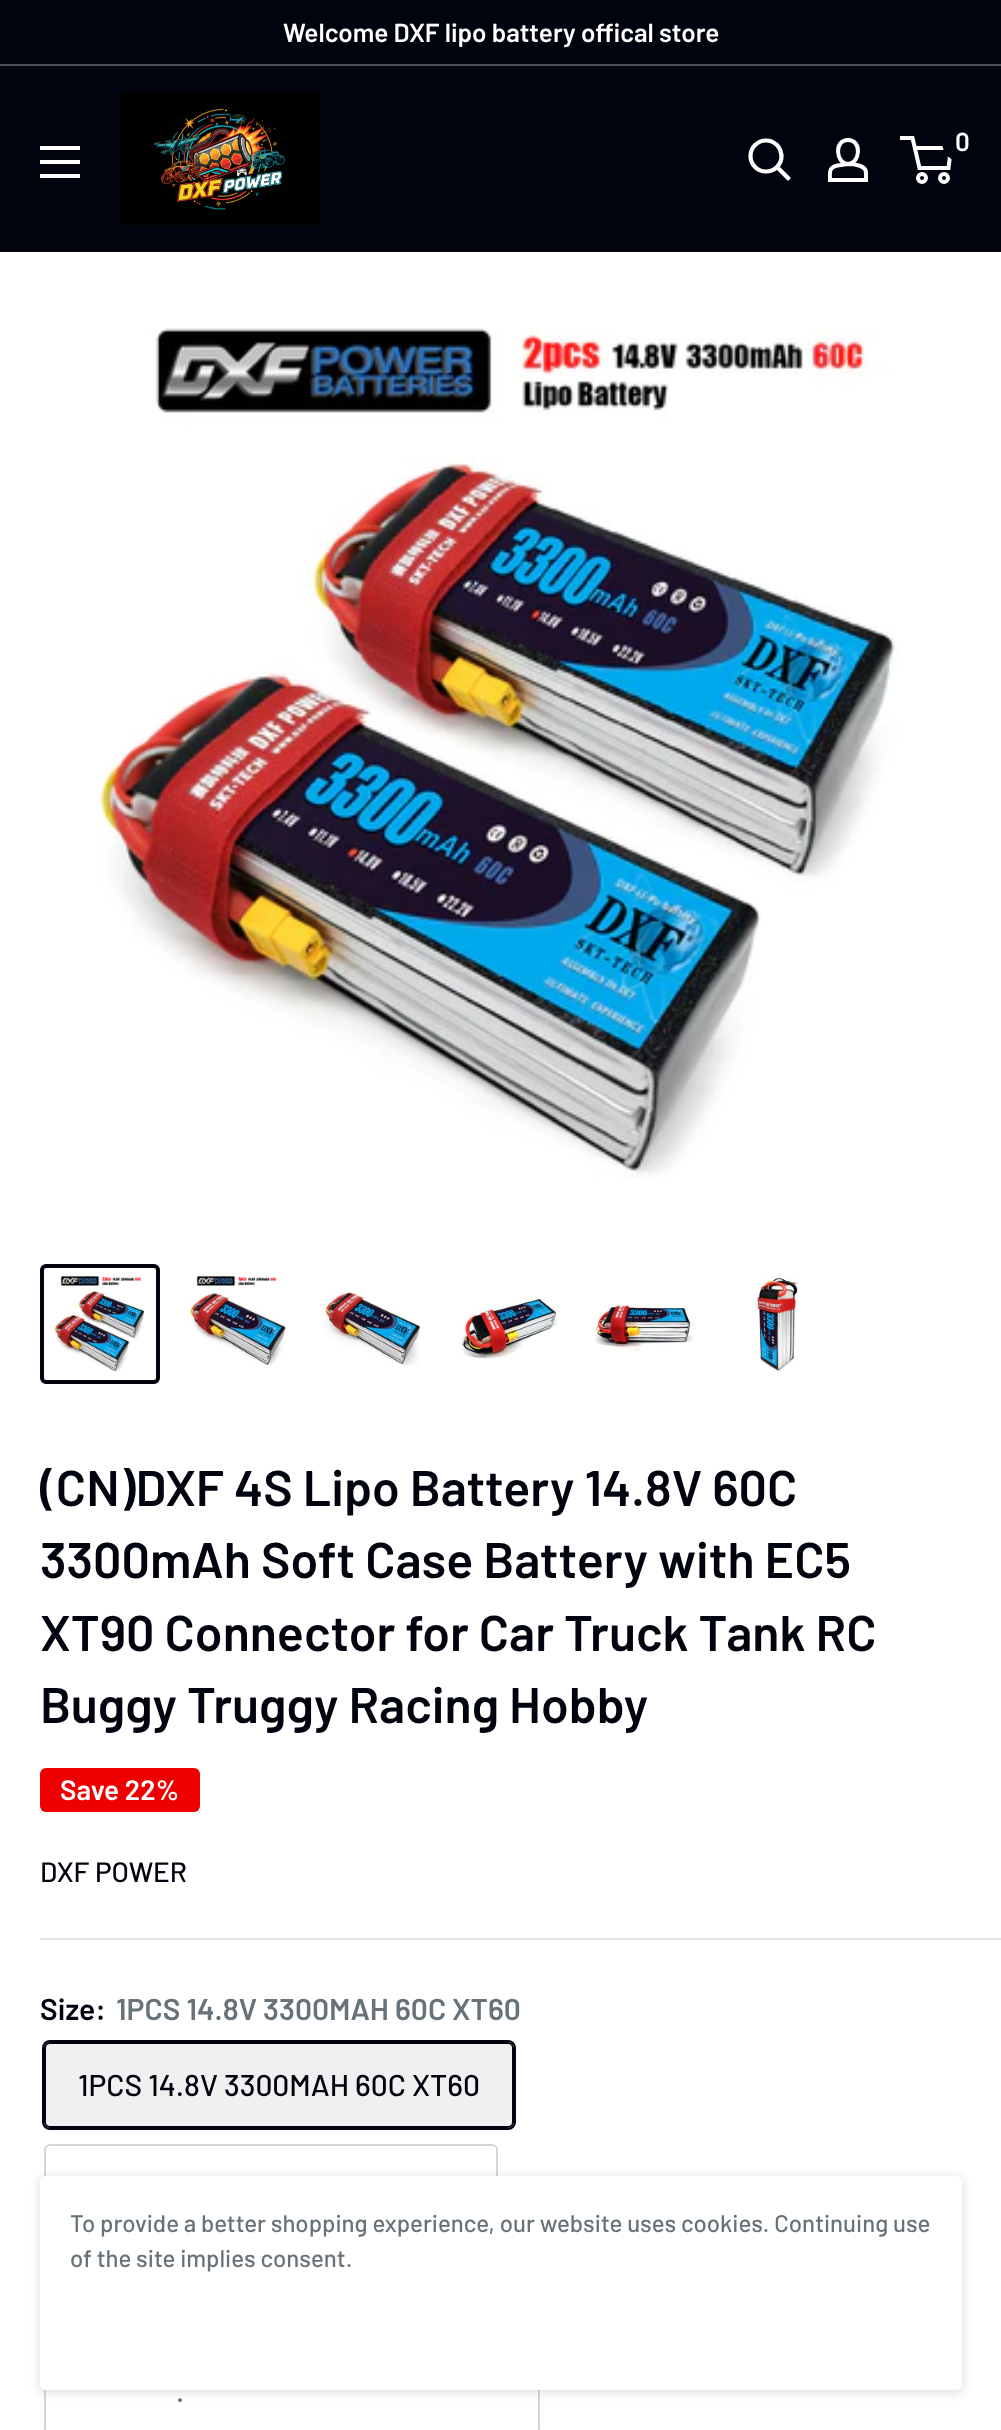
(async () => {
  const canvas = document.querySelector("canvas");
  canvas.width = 1001;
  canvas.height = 2430;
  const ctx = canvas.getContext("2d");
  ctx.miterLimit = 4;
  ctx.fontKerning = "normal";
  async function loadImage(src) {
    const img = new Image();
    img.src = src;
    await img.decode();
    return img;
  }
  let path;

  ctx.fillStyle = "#01030e";
  ctx.fillRect(0, 0, 1001, 2430);
  ctx.fillStyle = "#4d4f56";
  ctx.fillRect(0, 64, 1001, 2);
  ctx.drawImage(await loadImage("img/1.png"), 120, 92, 200, 134);
  path = new Path2D("M788 178L777.5 167.5");
  ctx.strokeStyle = "#ffffff";
  ctx.lineWidth = 4.2;
  ctx.lineCap = "square";
  ctx.stroke(path);
  ctx.beginPath();
  ctx.arc(766, 156, 15.5, 0, Math.PI * 2);
  ctx.stroke();
  path = new Path2D("M848 164C852 164 855.5 164.5 859 165.5C867.5 168 866 172.5 866 180H830C830 172 828.5 167.5 837.5 165.5ZM848 164C836 164 833.5 140 848 140C862.5 140 860 164 848 164Z");
  ctx.lineWidth = 4;
  ctx.lineCap = "butt";
  ctx.stroke(path);
  ctx.beginPath();
  ctx.arc(922, 178, 4, 0, Math.PI * 2);
  ctx.stroke();
  ctx.beginPath();
  ctx.arc(944, 178, 4, 0, Math.PI * 2);
  ctx.stroke();
  path = new Path2D("M914.5 148H951L948.5 168H919.5L912.5 138H900");
  ctx.stroke(path);
  ctx.fillStyle = "#01030e";
  ctx.beginPath();
  ctx.roundRect(942, 120, 40, 42, 20);
  ctx.fill();
  ctx.fillStyle = "#ffffff";
  path = new Path2D("M40 174H80V178H40ZM40 146H80V150H40ZM40 160H80V164H40Z");
  ctx.fill(path, "evenodd");
  ctx.fillRect(0, 252, 1001, 2178);
  ctx.drawImage(await loadImage("img/2.png"), 96, 328, 802, 850);
  ctx.beginPath();
  ctx.roundRect(42, 1266, 116, 116, 4);
  ctx.strokeStyle = "#01030e";
  ctx.stroke();
  ctx.drawImage(await loadImage("img/3.png"), 53, 1272, 91, 100);
  ctx.drawImage(await loadImage("img/4.png"), 189, 1272, 97, 94);
  ctx.drawImage(await loadImage("img/5.png"), 322, 1291, 98, 75);
  ctx.drawImage(await loadImage("img/6.png"), 461, 1298, 97, 61);
  ctx.drawImage(await loadImage("img/7.png"), 594, 1304, 100, 48);
  ctx.drawImage(await loadImage("img/8.png"), 753, 1277, 46, 94);
  ctx.fillStyle = "#ee0000";
  ctx.beginPath();
  ctx.roundRect(40, 1768, 160, 44, 6);
  ctx.fill();
  ctx.fillStyle = "#e1e3e4";
  ctx.fillRect(40, 1938, 961, 2);
  ctx.beginPath();
  ctx.roundRect(43, 2041, 472, 88, 7);
  ctx.lineWidth = 2;
  ctx.stroke();
  ctx.fillStyle = "rgba(1, 3, 14, 0.06)";
  ctx.fillRect(44, 2042, 470, 86);
  ctx.beginPath();
  ctx.roundRect(45, 2043, 468, 84, 5);
  ctx.stroke();
  ctx.beginPath();
  ctx.roundRect(45, 2145, 452, 84, 5);
  ctx.strokeStyle = "#d4d6d8";
  ctx.stroke();
  ctx.beginPath();
  ctx.roundRect(45, 2349, 494, 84, 5);
  ctx.stroke();
  ctx.fillStyle = "rgba(0, 0, 0, 0.1)";
  ctx.filter = "blur(4px)";
  ctx.beginPath();
  ctx.roundRect(38, 2176, 926, 218, 8);
  ctx.fill();
  ctx.filter = "none";
  ctx.fillStyle = "#ffffff";
  ctx.beginPath();
  ctx.roundRect(40, 2176, 922, 214, 6);
  ctx.fill();
  ctx.font = "600 26px Barlow";
  ctx.fillText("Welcome DXF lipo battery offical store", 283, 42);
  ctx.fillText("0", 955, 151);
  ctx.font = "600 50px Barlow";
  ctx.fillStyle = "#01030e";
  for (const [text, x, y] of [
    ["(CN)DXF 4S Lipo Battery 14.8V 60C", 40, 1506],
    ["3300mAh Soft Case Battery with EC5", 40, 1578],
    ["XT90 Connector for Car Truck Tank RC", 40, 1651],
    ["Buggy Truggy Racing Hobby", 40, 1723],
  ]) {
    ctx.fillText(text, x, y);
  }
  ctx.font = "600 28px Barlow";
  ctx.fillStyle = "#ffffff";
  ctx.fillText("Save 22%", 60, 1800);
  ctx.font = "500 28px Barlow";
  ctx.fillStyle = "#01030e";
  ctx.fillText("DXF POWER", 40, 1882);
  ctx.font = "600 30px Barlow";
  ctx.fillText("Size:", 40, 2020);
  ctx.fillStyle = "#677279";
  ctx.fillText("1PCS 14.8V 3300MAH 60C XT60", 116, 2020);
  ctx.font = "500 30px Barlow";
  ctx.fillStyle = "#01030e";
  ctx.fillText("1PCS 14.8V 3300MAH 60C XT60", 78, 2096);
  ctx.fillStyle = "#677279";
  ctx.fillText(".", 176, 2402);
  ctx.font = "500 24px Barlow";
  ctx.fillText("To provide a better shopping experience, our website uses cookies. Continuing use", 70, 2232);
  ctx.fillText("of the site implies consent.", 70, 2267);
})();
